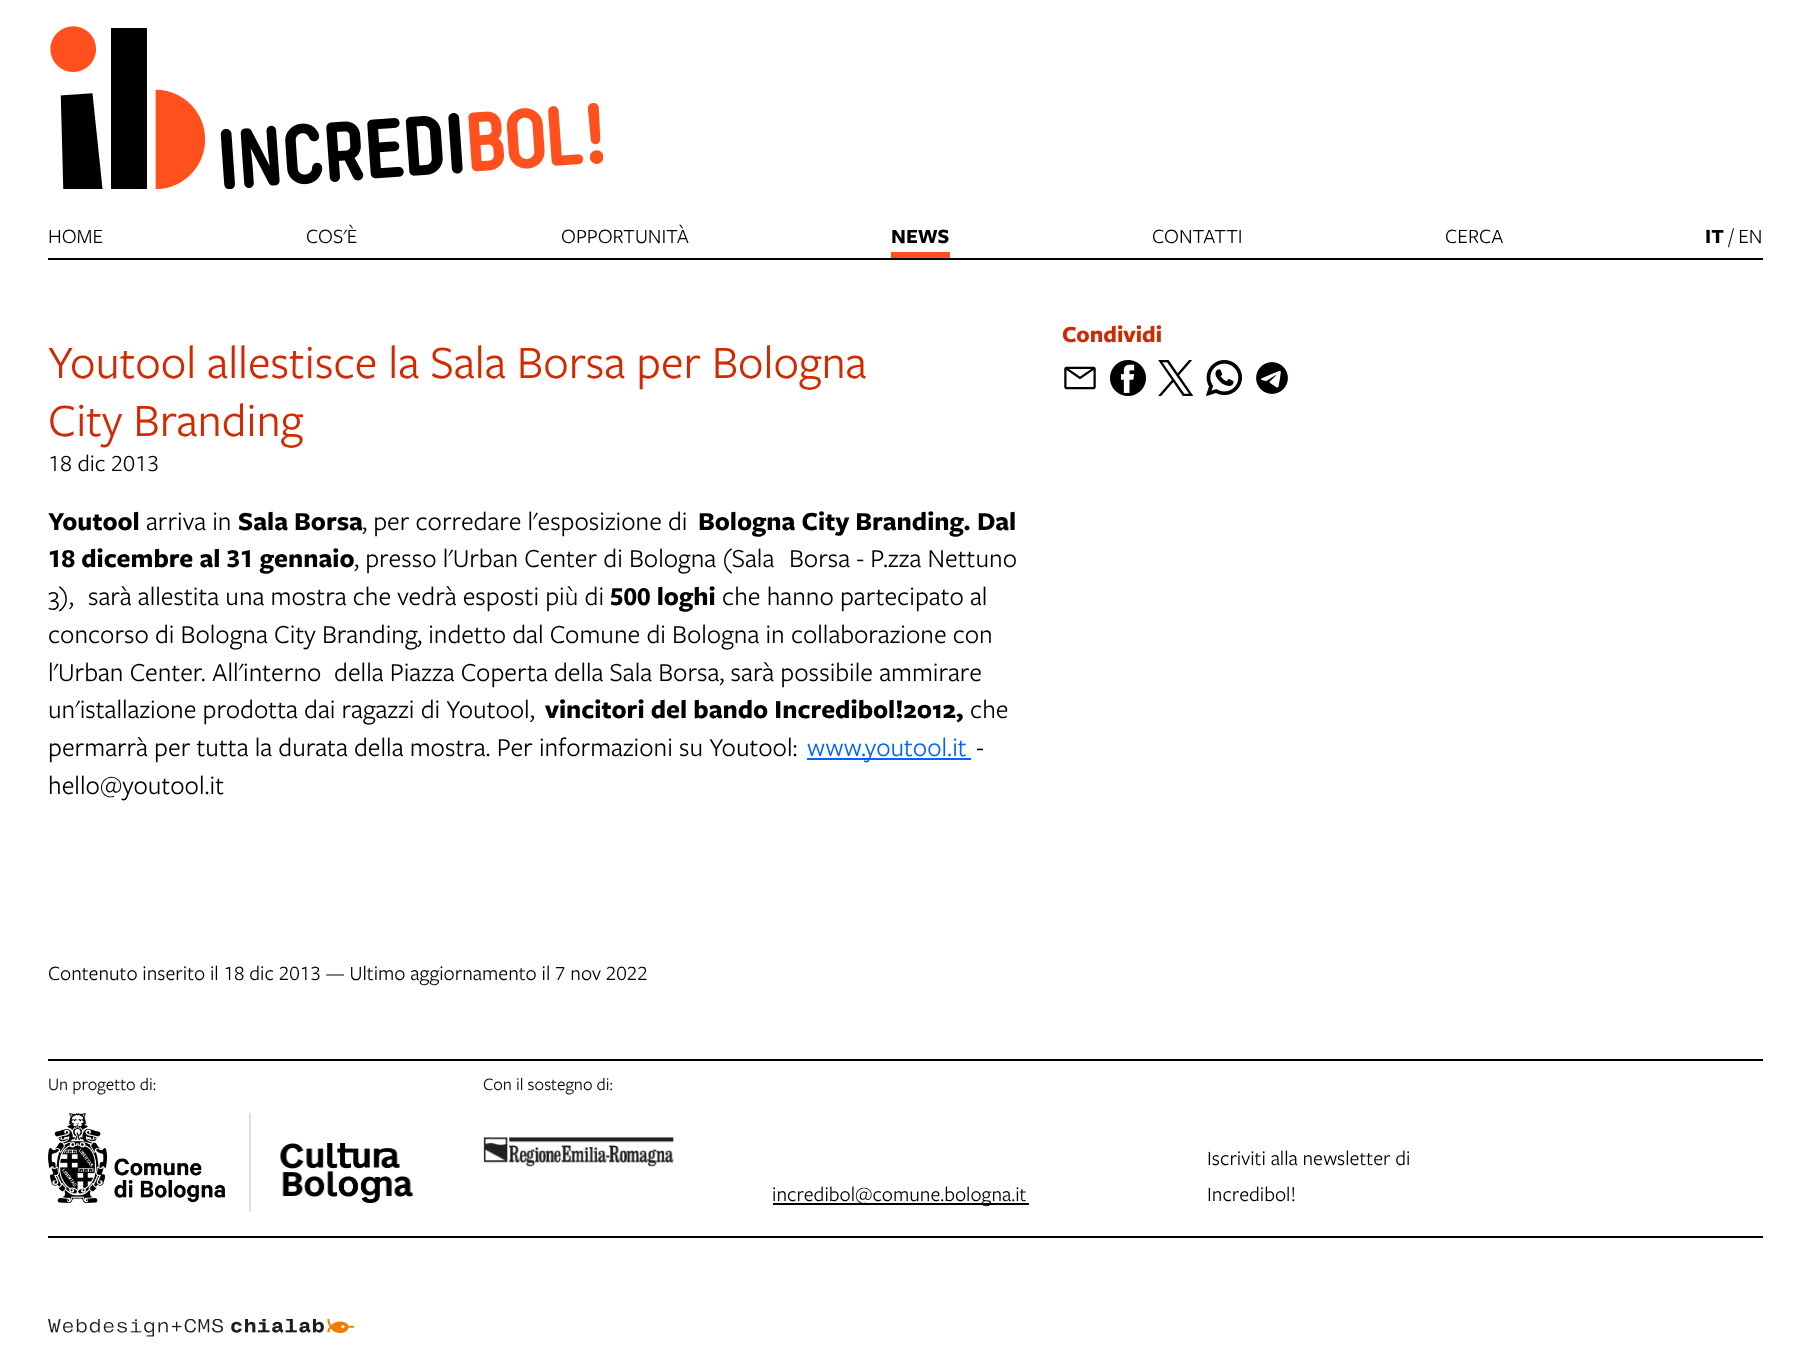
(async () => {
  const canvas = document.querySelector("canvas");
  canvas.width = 1810;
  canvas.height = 1366;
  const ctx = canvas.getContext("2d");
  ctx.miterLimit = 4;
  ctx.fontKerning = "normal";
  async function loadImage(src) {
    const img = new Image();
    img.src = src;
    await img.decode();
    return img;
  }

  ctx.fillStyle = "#ffffff";
  ctx.fillRect(0, 0, 1810, 1366);
  ctx.fillStyle = "#000000";
  ctx.fillRect(48, 258, 1715, 2);
  ctx.drawImage(await loadImage("img/1.png"), 50, 26, 553, 163);
  ctx.fillStyle = "#ff501e";
  ctx.fillRect(891, 252, 59, 6);
  ctx.drawImage(await loadImage("img/2.png"), 1064, 366, 32, 24);
  ctx.drawImage(await loadImage("img/3.png"), 1110, 360, 36, 36);
  ctx.drawImage(await loadImage("img/4.png"), 1158, 360, 36, 36);
  ctx.drawImage(await loadImage("img/5.png"), 1206, 360, 36, 36);
  ctx.drawImage(await loadImage("img/6.png"), 1255, 361, 34, 34);
  for (const [x, y, w, h, color] of [
    [807, 758, 164, 2, "#0062ff"],
    [48, 1059, 1715, 2, "#000000"],
    [48, 1236, 1715, 2, "#000000"],
    [249, 1113, 2, 99, "#dedede"],
  ]) {
    ctx.fillStyle = color;
    ctx.fillRect(x, y, w, h);
  }
  ctx.drawImage(await loadImage("img/7.png"), 48, 1113, 177, 90);
  ctx.drawImage(await loadImage("img/8.png"), 280, 1143, 133, 60);
  ctx.drawImage(await loadImage("img/9.png"), 483, 1137, 191, 30);
  ctx.fillStyle = "#000000";
  ctx.fillRect(773, 1203, 256, 2);
  ctx.drawImage(await loadImage("img/10.png"), 48, 1319, 306, 18);
  ctx.font = "21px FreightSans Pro";
  for (const [text, x, y] of [
    ["HOME", 48, 243],
    ["COS'È", 306, 243],
    ["OPPORTUNITÀ", 561, 243],
  ]) {
    ctx.fillText(text, x, y);
  }
  ctx.font = "bold 21px FreightSans Pro";
  ctx.fillText("NEWS", 891, 243);
  ctx.font = "21px FreightSans Pro";
  ctx.fillText("CONTATTI", 1152, 243);
  ctx.fillText("CERCA", 1445, 243);
  ctx.font = "bold 21px FreightSans Pro";
  ctx.fillText("IT", 1705, 243);
  ctx.font = "21px FreightSans Pro";
  ctx.fillText("/ EN", 1729, 243);
  ctx.font = "bold 24px FreightSans Pro";
  ctx.fillStyle = "#d32901";
  ctx.fillText("Condividi", 1062, 342);
  ctx.font = "48px FreightSans Pro";
  ctx.fillText("Youtool allestisce la Sala Borsa per Bologna", 48, 378);
  ctx.fillText("City Branding", 48, 436);
  ctx.font = "24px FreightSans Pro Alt";
  ctx.fillStyle = "#000000";
  ctx.fillText("18 dic 2013", 48, 471);
  ctx.font = "bold 27px FreightSans Pro";
  ctx.fillText("Youtool", 48, 530);
  ctx.font = "27px FreightSans Pro";
  ctx.fillText("arriva in", 146, 530);
  ctx.font = "bold 27px FreightSans Pro";
  ctx.fillText("Sala Borsa", 238, 530);
  ctx.font = "27px FreightSans Pro";
  ctx.fillText(", per corredare l'esposizione di", 362, 530);
  ctx.font = "bold 27px FreightSans Pro";
  ctx.fillText("Bologna City Branding. Dal", 698, 530);
  ctx.font = "bold 27px FreightSans Pro Alt";
  ctx.fillText("18 dicembre al 31 gennaio", 48, 567);
  ctx.font = "27px FreightSans Pro";
  ctx.fillText(", presso l'Urban Center di Bologna (Sala", 354, 567);
  ctx.fillText("Borsa - P.zza Nettuno", 789, 567);
  ctx.fillText("3),", 48, 605);
  ctx.fillText("sarà allestita una mostra che vedrà esposti più di", 88, 605);
  ctx.font = "bold 27px FreightSans Pro Alt";
  ctx.fillText("500 loghi", 610, 605);
  ctx.font = "27px FreightSans Pro";
  for (const [text, x, y] of [
    ["che hanno partecipato al", 722, 605],
    ["concorso di Bologna City Branding, indetto dal Comune di Bologna in collaborazione con", 48, 643],
    ["l'Urban Center. All'interno", 48, 681],
    ["della Piazza Coperta della Sala Borsa, sarà possibile ammirare", 334, 681],
    ["un'istallazione prodotta dai ragazzi di Youtool,", 48, 718],
  ]) {
    ctx.fillText(text, x, y);
  }
  ctx.font = "bold 27px FreightSans Pro";
  ctx.fillText("vincitori del bando Incredibol!2012,", 545, 718);
  ctx.font = "27px FreightSans Pro";
  ctx.fillText("che", 970, 718);
  ctx.fillText("permarrà per tutta la durata della mostra. Per informazioni su Youtool:", 48, 756);
  ctx.fillStyle = "#0062ff";
  ctx.fillText("www.youtool.it", 807, 756);
  ctx.fillStyle = "#000000";
  ctx.fillText("-", 976, 756);
  ctx.fillText("hello@youtool.it", 48, 794);
  ctx.font = "21px FreightSans Pro Alt";
  ctx.fillText("Contenuto inserito il 18 dic 2013 — Ultimo aggiornamento il 7 nov 2022", 48, 980);
  ctx.font = "18px FreightSans Pro";
  ctx.fillText("Un progetto di:", 48, 1090);
  ctx.fillText("Con il sostegno di:", 483, 1090);
  ctx.font = "21px FreightSans Pro";
  for (const [text, x, y] of [
    ["incredibol@comune.bologna.it", 772, 1201],
    ["Iscriviti alla newsletter di", 1207, 1165],
    ["Incredibol!", 1207, 1201],
  ]) {
    ctx.fillText(text, x, y);
  }
})();
